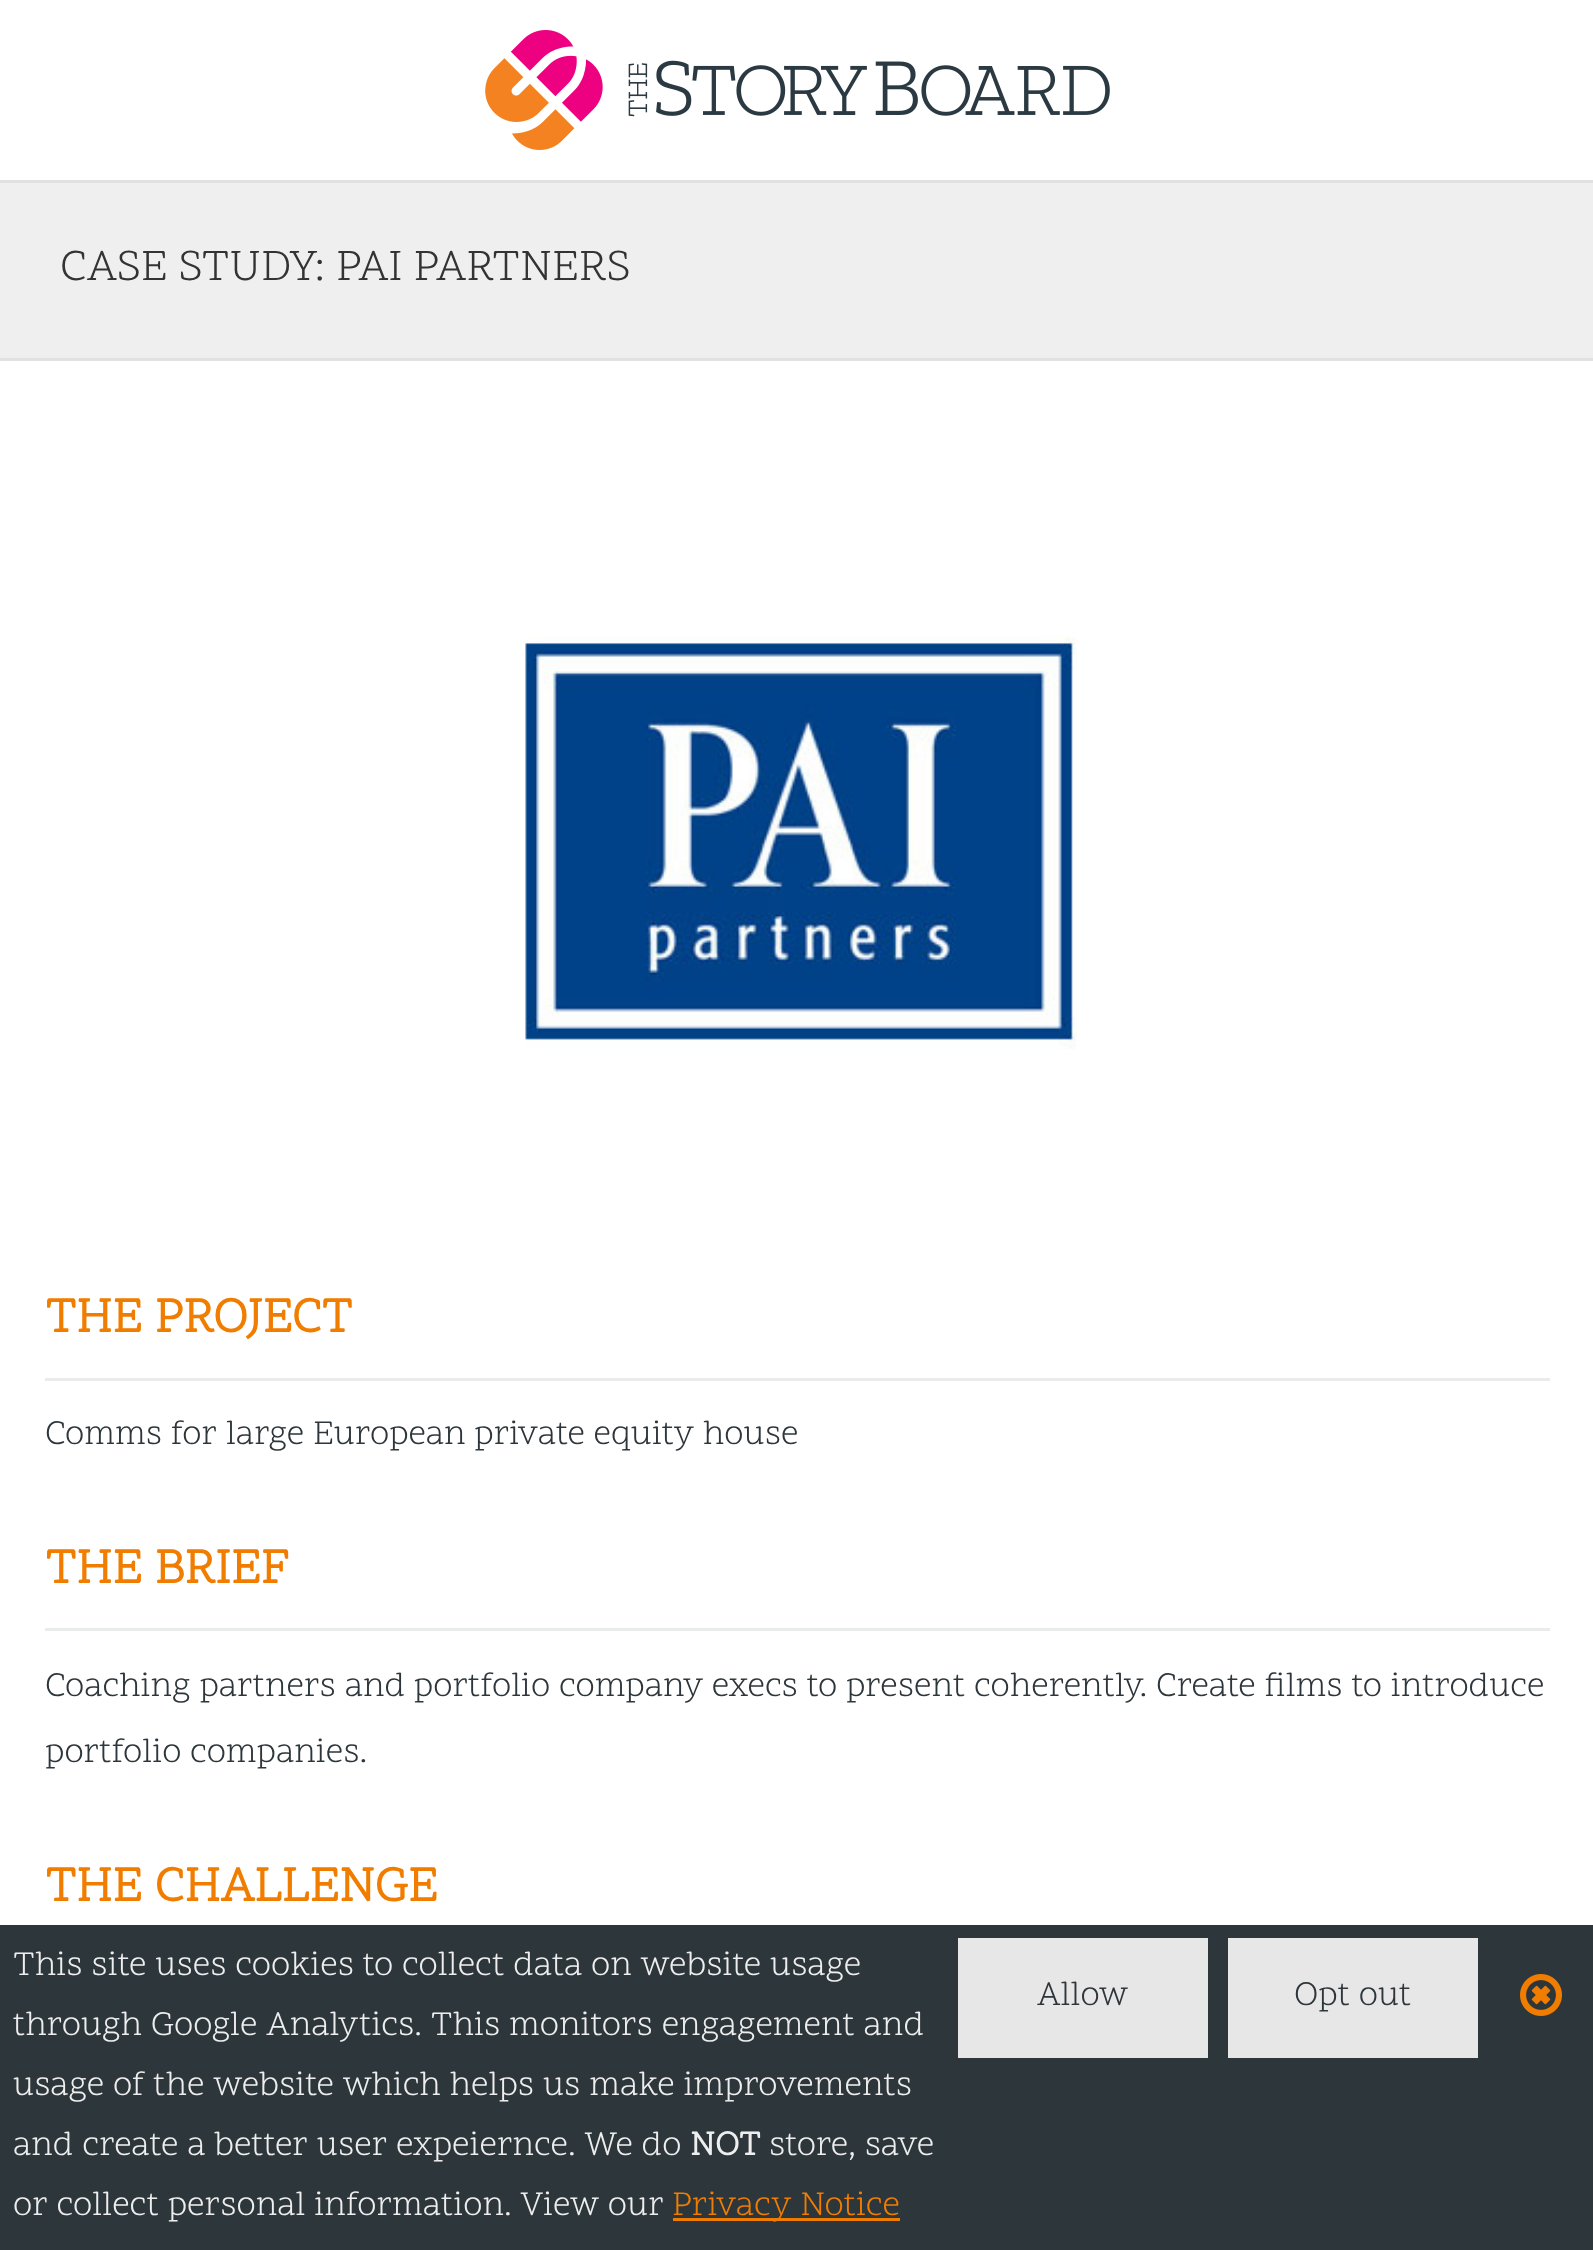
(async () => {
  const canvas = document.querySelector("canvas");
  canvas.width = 1593;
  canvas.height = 2250;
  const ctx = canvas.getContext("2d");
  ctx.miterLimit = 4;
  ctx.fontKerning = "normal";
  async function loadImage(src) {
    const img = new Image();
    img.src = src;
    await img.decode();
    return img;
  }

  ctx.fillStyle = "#ffffff";
  ctx.fillRect(0, 0, 1593, 2250);
  ctx.drawImage(await loadImage("img/1.png"), 485, 30, 625, 120);
  for (const [x, y, w, h, color] of [
    [0, 183, 1593, 175, "#efefef"],
    [0, 180, 1593, 3, "#e1e1e1"],
    [0, 358, 1593, 3, "#e1e1e1"],
  ]) {
    ctx.fillStyle = color;
    ctx.fillRect(x, y, w, h);
  }
  ctx.drawImage(await loadImage("img/2.png"), 525, 636, 552, 414);
  for (const [x, y, w, h, color] of [
    [45, 1378, 1505, 3, "#eaebeb"],
    [45, 1628, 1505, 3, "#eaebeb"],
    [0, 1925, 1593, 325, "#2d363b"],
    [673, 2218, 227, 3, "#f07d00"],
    [958, 1938, 250, 120, "#e7e7e7"],
    [1228, 1938, 250, 120, "#e7e7e7"],
  ]) {
    ctx.fillStyle = color;
    ctx.fillRect(x, y, w, h);
  }
  ctx.drawImage(await loadImage("img/3.png"), 1520, 1974, 42, 42);
  ctx.font = "45px Scope One";
  ctx.fillStyle = "#333333";
  ctx.fillText("CASE STUDY: PAI PARTNERS", 60, 280);
  ctx.font = "bold 50px Scope One";
  ctx.fillStyle = "#f07d00";
  ctx.fillText("THE PROJECT", 45, 1332);
  ctx.font = "35px Scope One";
  ctx.fillStyle = "#2d363b";
  ctx.fillText("Comms for large European private equity house", 45, 1444);
  ctx.font = "bold 50px Scope One";
  ctx.fillStyle = "#f07d00";
  ctx.fillText("THE BRIEF", 45, 1583);
  ctx.font = "35px Scope One";
  ctx.fillStyle = "#2d363b";
  ctx.fillText("Coaching partners and portfolio company execs to present coherently. Create films to introduce", 45, 1696);
  ctx.fillText("portfolio companies.", 45, 1762);
  ctx.font = "bold 50px Scope One";
  ctx.fillStyle = "#f07d00";
  ctx.fillText("THE CHALLENGE", 45, 1901);
  ctx.font = "35px Scope One";
  ctx.fillStyle = "#eeeeee";
  for (const [text, x, y] of [
    ["This site uses cookies to collect data on website usage", 13, 1975],
    ["through Google Analytics. This monitors engagement and", 13, 2035],
    ["usage of the website which helps us make improvements", 13, 2095],
    ["and create a better user expeiernce. We do", 13, 2155],
  ]) {
    ctx.fillText(text, x, y);
  }
  ctx.font = "bold 35px Scope One";
  ctx.fillText("NOT", 690, 2155);
  ctx.font = "35px Scope One";
  ctx.fillText("store, save", 769, 2155);
  ctx.fillText("or collect personal information. View our", 13, 2215);
  ctx.fillStyle = "#f07d00";
  ctx.fillText("Privacy Notice", 672, 2215);
  ctx.fillStyle = "#2d363b";
  ctx.fillText("Allow", 1037, 2005);
  ctx.fillText("Opt out", 1294, 2005);
})();
